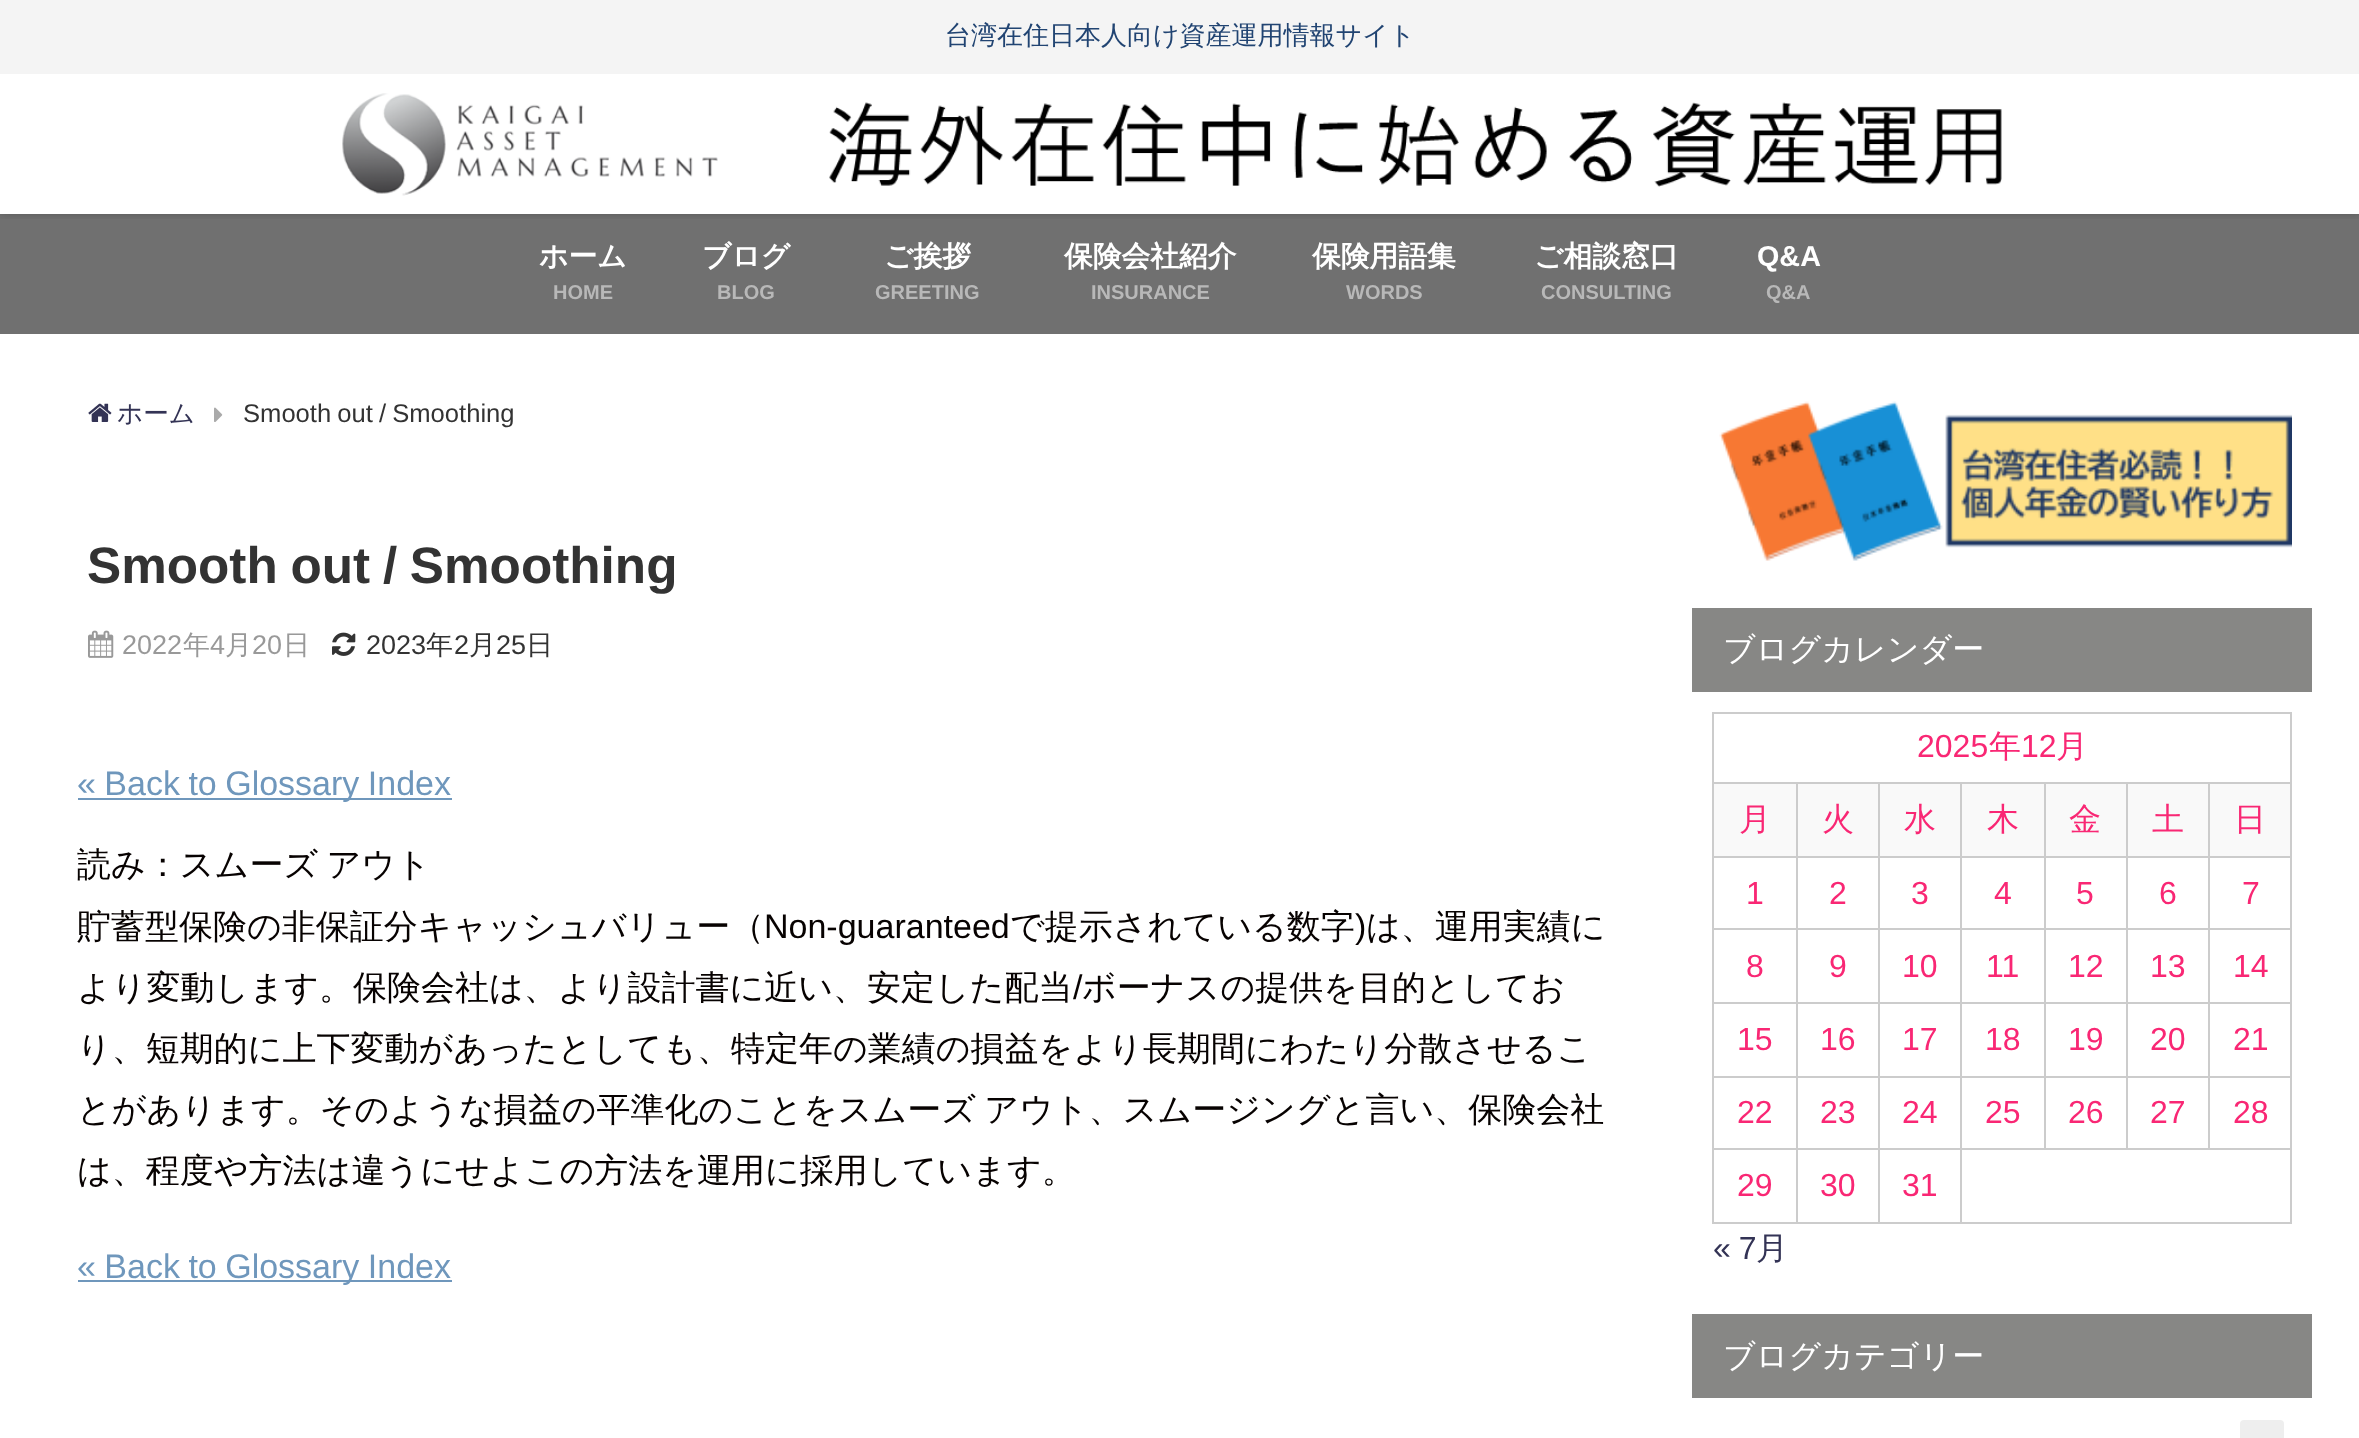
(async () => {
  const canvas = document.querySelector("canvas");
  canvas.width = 2359;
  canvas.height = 1438;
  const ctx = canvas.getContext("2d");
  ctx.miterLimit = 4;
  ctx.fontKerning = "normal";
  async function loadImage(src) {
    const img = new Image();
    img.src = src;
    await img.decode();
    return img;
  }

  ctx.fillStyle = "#ffffff";
  ctx.fillRect(0, 0, 2359, 1438);
  ctx.fillStyle = "#707070";
  ctx.fillRect(0, 214, 2359, 120);
  ctx.save();
  ctx.beginPath();
  ctx.rect(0, 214, 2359, 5);
  ctx.clip();
  ctx.fillStyle = "rgba(0, 0, 0, 0.2)";
  ctx.filter = "blur(4px)";
  ctx.beginPath();
  ctx.rect(0, 0, 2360, 214);
  ctx.fill();
  ctx.filter = "none";
  ctx.restore();
  ctx.fillStyle = "#f4f4f4";
  ctx.fillRect(0, 0, 2359, 74);
  ctx.drawImage(await loadImage("img/1.png"), 342, 93, 1660, 103);
  ctx.drawImage(await loadImage("img/2.png"), 88, 403, 24, 19);
  ctx.drawImage(await loadImage("img/3.png"), 214, 407, 9, 15);
  ctx.drawImage(await loadImage("img/4.png"), 88, 630, 26, 28);
  ctx.drawImage(await loadImage("img/5.png"), 332, 632, 24, 24);
  ctx.fillStyle = "#6f97bc";
  ctx.fillRect(78, 798, 374, 2);
  ctx.fillRect(78, 1280, 374, 2);
  ctx.drawImage(await loadImage("img/6.png"), 1719, 401, 573, 160);
  for (const [x, y, w, h, color] of [
    [1692, 608, 620, 84, "#878785"],
    [1712, 712, 580, 2, "#cccccc"],
    [2290, 712, 2, 512, "#cccccc"],
    [1712, 1222, 580, 2, "#cccccc"],
    [1712, 712, 2, 512, "#cccccc"],
    [1714, 784, 82, 72, "#f9f9f9"],
    [2208, 782, 84, 2, "#cccccc"],
    [2208, 856, 84, 2, "#cccccc"],
    [2208, 928, 84, 2, "#cccccc"],
    [2208, 1002, 84, 2, "#cccccc"],
    [2208, 1076, 84, 2, "#cccccc"],
    [1960, 1148, 332, 2, "#cccccc"],
    [2208, 1076, 2, 74, "#cccccc"],
    [2126, 1076, 84, 2, "#cccccc"],
    [2208, 1002, 2, 76, "#cccccc"],
    [2126, 1002, 84, 2, "#cccccc"],
    [2208, 928, 2, 76, "#cccccc"],
    [2126, 928, 84, 2, "#cccccc"],
    [2208, 856, 2, 74, "#cccccc"],
    [2126, 856, 84, 2, "#cccccc"],
    [2208, 782, 2, 76, "#cccccc"],
    [2126, 782, 84, 2, "#cccccc"],
    [2126, 1076, 2, 74, "#cccccc"],
    [2044, 1076, 84, 2, "#cccccc"],
    [2126, 1002, 2, 76, "#cccccc"],
    [2044, 1002, 84, 2, "#cccccc"],
    [2126, 928, 2, 76, "#cccccc"],
    [2044, 928, 84, 2, "#cccccc"],
    [2126, 856, 2, 74, "#cccccc"],
    [2044, 856, 84, 2, "#cccccc"],
    [2126, 782, 2, 76, "#cccccc"],
    [2044, 782, 84, 2, "#cccccc"],
    [2044, 1076, 2, 74, "#cccccc"],
    [1960, 1076, 86, 2, "#cccccc"],
    [2044, 1002, 2, 76, "#cccccc"],
    [1960, 1002, 86, 2, "#cccccc"],
    [2044, 928, 2, 76, "#cccccc"],
    [1960, 928, 86, 2, "#cccccc"],
    [2044, 856, 2, 74, "#cccccc"],
    [1960, 856, 86, 2, "#cccccc"],
    [2044, 782, 2, 76, "#cccccc"],
    [1960, 782, 86, 2, "#cccccc"],
    [1960, 1148, 2, 76, "#cccccc"],
    [1878, 1148, 84, 2, "#cccccc"],
    [1960, 1076, 2, 74, "#cccccc"],
    [1878, 1076, 84, 2, "#cccccc"],
    [1960, 1002, 2, 76, "#cccccc"],
    [1878, 1002, 84, 2, "#cccccc"],
    [1960, 928, 2, 76, "#cccccc"],
    [1878, 928, 84, 2, "#cccccc"],
    [1960, 856, 2, 74, "#cccccc"],
    [1878, 856, 84, 2, "#cccccc"],
    [1960, 782, 2, 76, "#cccccc"],
    [1878, 782, 84, 2, "#cccccc"],
    [1878, 1148, 2, 76, "#cccccc"],
    [1796, 1148, 84, 2, "#cccccc"],
    [1878, 1076, 2, 74, "#cccccc"],
    [1796, 1076, 84, 2, "#cccccc"],
    [1878, 1002, 2, 76, "#cccccc"],
    [1796, 1002, 84, 2, "#cccccc"],
    [1878, 928, 2, 76, "#cccccc"],
    [1796, 928, 84, 2, "#cccccc"],
    [1878, 856, 2, 74, "#cccccc"],
    [1796, 856, 84, 2, "#cccccc"],
    [1878, 782, 2, 76, "#cccccc"],
    [1796, 782, 84, 2, "#cccccc"],
    [1796, 1148, 2, 76, "#cccccc"],
    [1712, 1148, 86, 2, "#cccccc"],
    [1796, 1076, 2, 74, "#cccccc"],
    [1712, 1076, 86, 2, "#cccccc"],
    [1796, 1002, 2, 76, "#cccccc"],
    [1712, 1002, 86, 2, "#cccccc"],
    [1796, 928, 2, 76, "#cccccc"],
    [1712, 928, 86, 2, "#cccccc"],
    [1796, 856, 2, 74, "#cccccc"],
    [1712, 856, 86, 2, "#cccccc"],
    [1796, 782, 2, 76, "#cccccc"],
    [1712, 782, 86, 2, "#cccccc"],
    [1798, 784, 80, 72, "#f9f9f9"],
    [1880, 784, 80, 72, "#f9f9f9"],
    [1962, 784, 82, 72, "#f9f9f9"],
    [2046, 784, 80, 72, "#f9f9f9"],
    [2128, 784, 80, 72, "#f9f9f9"],
    [2210, 784, 80, 72, "#f9f9f9"],
    [1692, 1314, 620, 84, "#878785"],
  ]) {
    ctx.fillStyle = color;
    ctx.fillRect(x, y, w, h);
  }
  ctx.fillStyle = "#eeeeee";
  ctx.beginPath();
  ctx.roundRect(2240, 1420, 44, 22, 4);
  ctx.fill();
  ctx.font = "500 26px WenQuanYi Zen Hei";
  ctx.fillStyle = "#214472";
  ctx.fillText("台湾在住日本人向け資産運用情報サイト", 945, 44);
  ctx.font = "bold 28.75px WenQuanYi Zen Hei";
  ctx.fillStyle = "#ffffff";
  ctx.fillText("ホーム", 539, 266);
  ctx.font = "bold 20px Liberation Sans";
  ctx.fillStyle = "#b8b8b8";
  ctx.fillText("HOME", 553, 299);
  ctx.font = "bold 28.75px WenQuanYi Zen Hei";
  ctx.fillStyle = "#ffffff";
  ctx.fillText("ブログ", 702, 266);
  ctx.font = "bold 20px Liberation Sans";
  ctx.fillStyle = "#b8b8b8";
  ctx.fillText("BLOG", 717, 299);
  ctx.font = "bold 28.75px WenQuanYi Zen Hei";
  ctx.fillStyle = "#ffffff";
  ctx.fillText("ご挨拶", 884, 266);
  ctx.font = "bold 20px Liberation Sans";
  ctx.fillStyle = "#b8b8b8";
  ctx.fillText("GREETING", 875, 299);
  ctx.font = "bold 28.75px WenQuanYi Zen Hei";
  ctx.fillStyle = "#ffffff";
  ctx.fillText("保険会社紹介", 1064, 266);
  ctx.font = "bold 20px Liberation Sans";
  ctx.fillStyle = "#b8b8b8";
  ctx.fillText("INSURANCE", 1091, 299);
  ctx.font = "bold 28.75px WenQuanYi Zen Hei";
  ctx.fillStyle = "#ffffff";
  ctx.fillText("保険用語集", 1312, 266);
  ctx.font = "bold 20px Liberation Sans";
  ctx.fillStyle = "#b8b8b8";
  ctx.fillText("WORDS", 1346, 299);
  ctx.font = "bold 28.75px WenQuanYi Zen Hei";
  ctx.fillStyle = "#ffffff";
  ctx.fillText("ご相談窓口", 1534, 266);
  ctx.font = "bold 20px Liberation Sans";
  ctx.fillStyle = "#b8b8b8";
  ctx.fillText("CONSULTING", 1541, 299);
  ctx.font = "bold 28.75px Liberation Sans";
  ctx.fillStyle = "#ffffff";
  ctx.fillText("Q&A", 1757, 266);
  ctx.font = "bold 20px Liberation Sans";
  ctx.fillStyle = "#b8b8b8";
  ctx.fillText("Q&A", 1766, 299);
  ctx.font = "500 25.6px WenQuanYi Zen Hei";
  ctx.fillStyle = "#333355";
  ctx.fillText("ホーム", 117, 422);
  ctx.wordSpacing = "-1px";
  ctx.font = "25.6px Liberation Sans";
  ctx.fillStyle = "#333333";
  ctx.fillText("Smooth out / Smoothing", 243, 422);
  ctx.wordSpacing = "-1.5px";
  ctx.font = "bold 51.25px Liberation Sans";
  ctx.fillText("Smooth out / Smoothing", 87, 583);
  ctx.wordSpacing = "0px";
  ctx.font = "27px Liberation Sans";
  ctx.fillStyle = "#999999";
  ctx.fillText("2022", 122, 654);
  ctx.font = "500 27px WenQuanYi Zen Hei";
  ctx.fillText("年", 183, 654);
  ctx.font = "27px Liberation Sans";
  ctx.fillText("4", 210, 654);
  ctx.font = "500 27px WenQuanYi Zen Hei";
  ctx.fillText("月", 225, 654);
  ctx.font = "27px Liberation Sans";
  ctx.fillText("20", 252, 654);
  ctx.font = "500 27px WenQuanYi Zen Hei";
  ctx.fillText("日", 283, 654);
  ctx.font = "27px Liberation Sans";
  ctx.fillStyle = "#333333";
  ctx.fillText("2023", 366, 654);
  ctx.font = "500 27px WenQuanYi Zen Hei";
  ctx.fillText("年", 426, 654);
  ctx.font = "27px Liberation Sans";
  ctx.fillText("2", 454, 654);
  ctx.font = "500 27px WenQuanYi Zen Hei";
  ctx.fillText("月", 469, 654);
  ctx.font = "27px Liberation Sans";
  ctx.fillText("25", 496, 654);
  ctx.font = "500 27px WenQuanYi Zen Hei";
  ctx.fillText("日", 526, 654);
  ctx.wordSpacing = "-1px";
  ctx.font = "34px Liberation Sans";
  ctx.fillStyle = "#6f97bc";
  ctx.fillText("« Back to Glossary Index", 77, 795);
  ctx.wordSpacing = "-2px";
  ctx.font = "500 34px WenQuanYi Zen Hei";
  ctx.fillStyle = "#070201";
  ctx.fillText("読み：スムーズ アウト", 77, 876);
  ctx.wordSpacing = "0px";
  ctx.fillText("貯蓄型保険の非保証分キャッシュバリュー（", 77, 938);
  ctx.font = "34px Liberation Sans";
  ctx.fillText("Non-guaranteed", 764, 938);
  ctx.font = "500 34px WenQuanYi Zen Hei";
  ctx.fillText("で提示されている数字", 1010, 938);
  ctx.font = "34px Liberation Sans";
  ctx.fillText(")", 1355, 938);
  ctx.font = "500 34px WenQuanYi Zen Hei";
  ctx.fillText("は、運用実績に", 1366, 938);
  ctx.fillText("より変動します。保険会社は、より設計書に近い、安定した配当", 77, 999);
  ctx.font = "34px Liberation Sans";
  ctx.fillText("/", 1073, 999);
  ctx.font = "500 34px WenQuanYi Zen Hei";
  ctx.fillText("ボーナスの提供を目的としてお", 1082, 999);
  ctx.fillText("り、短期的に上下変動があったとしても、特定年の業績の損益をより長期間にわたり分散させるこ", 77, 1060);
  ctx.wordSpacing = "-2px";
  ctx.fillText("とがあります。そのような損益の平準化のことをスムーズ アウト、スムージングと言い、保険会社", 77, 1121);
  ctx.wordSpacing = "0px";
  ctx.fillText("は、程度や方法は違うにせよこの方法を運用に採用しています。", 77, 1182);
  ctx.wordSpacing = "-1px";
  ctx.font = "34px Liberation Sans";
  ctx.fillStyle = "#6f97bc";
  ctx.fillText("« Back to Glossary Index", 77, 1278);
  ctx.wordSpacing = "0px";
  ctx.font = "500 32px WenQuanYi Zen Hei";
  ctx.fillStyle = "#ffffff";
  ctx.fillText("ブログカレンダー", 1723, 660);
  ctx.font = "32px Liberation Sans";
  ctx.fillStyle = "#f92774";
  ctx.fillText("2025", 1917, 757);
  ctx.font = "500 32px WenQuanYi Zen Hei";
  ctx.fillText("年", 1989, 757);
  ctx.font = "32px Liberation Sans";
  ctx.fillText("12", 2021, 757);
  ctx.font = "500 32px WenQuanYi Zen Hei";
  for (const [text, x, y] of [
    ["月", 2056, 757],
    ["月", 1739, 830],
    ["火", 1822, 830],
    ["水", 1904, 830],
    ["木", 1987, 830],
    ["金", 2069, 830],
    ["土", 2152, 830],
    ["日", 2234, 830],
  ]) {
    ctx.fillText(text, x, y);
  }
  ctx.font = "32px Liberation Sans";
  for (const [text, x, y] of [
    ["1", 1746, 904],
    ["2", 1829, 904],
    ["3", 1911, 904],
    ["4", 1994, 904],
    ["5", 2076, 904],
    ["6", 2159, 904],
    ["7", 2242, 904],
    ["8", 1746, 977],
    ["9", 1829, 977],
    ["10", 1902, 977],
    ["11", 1986, 977],
    ["12", 2068, 977],
    ["13", 2150, 977],
    ["14", 2233, 977],
    ["15", 1737, 1050],
    ["16", 1820, 1050],
    ["17", 1902, 1050],
    ["18", 1985, 1050],
    ["19", 2068, 1050],
    ["20", 2150, 1050],
    ["21", 2233, 1050],
    ["22", 1737, 1123],
    ["23", 1820, 1123],
    ["24", 1902, 1123],
    ["25", 1985, 1123],
    ["26", 2068, 1123],
    ["27", 2150, 1123],
    ["28", 2233, 1123],
    ["29", 1737, 1196],
    ["30", 1820, 1196],
    ["31", 1902, 1196],
  ]) {
    ctx.fillText(text, x, y);
  }
  ctx.wordSpacing = "-1px";
  ctx.fillStyle = "#333355";
  ctx.fillText("« 7", 1713, 1259);
  ctx.wordSpacing = "0px";
  ctx.font = "500 32px WenQuanYi Zen Hei";
  ctx.fillText("月", 1756, 1259);
  ctx.fillStyle = "#ffffff";
  ctx.fillText("ブログカテゴリー", 1723, 1367);
})();
